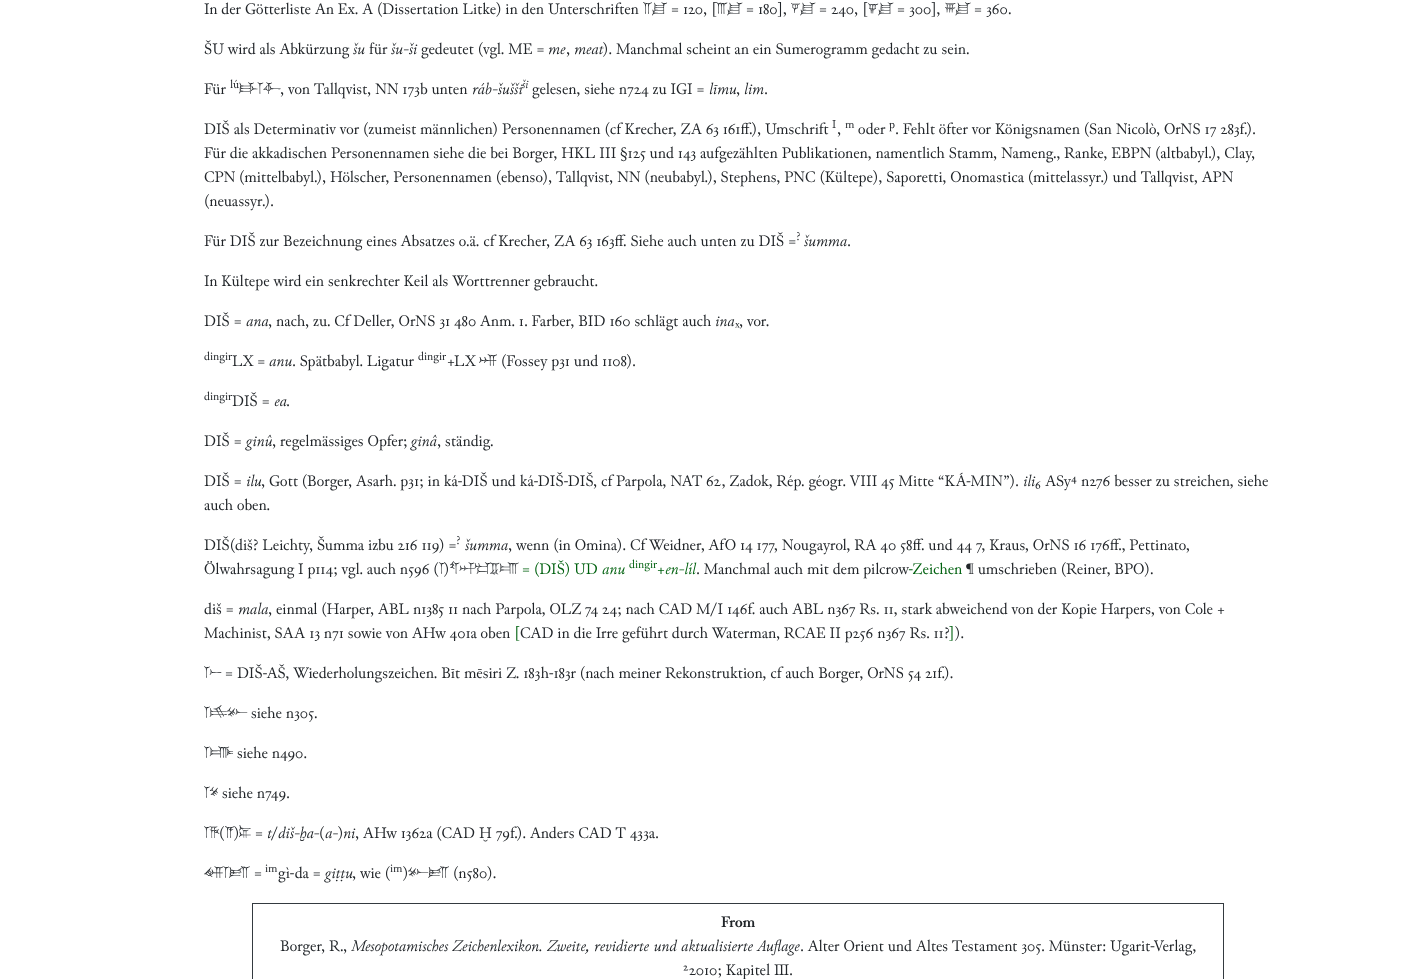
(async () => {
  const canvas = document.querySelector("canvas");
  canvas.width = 1404;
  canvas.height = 979;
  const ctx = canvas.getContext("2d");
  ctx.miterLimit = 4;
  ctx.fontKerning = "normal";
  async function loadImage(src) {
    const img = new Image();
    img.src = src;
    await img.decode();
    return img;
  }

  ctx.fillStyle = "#ffffff";
  ctx.fillRect(0, 0, 1404, 979);
  ctx.drawImage(await loadImage("img/1.png"), 479, 354, 18, 12);
  ctx.strokeStyle = "#343a40";
  ctx.strokeRect(252.5, 903.5, 971, 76);
  ctx.font = "16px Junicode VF";
  ctx.fillStyle = "#212529";
  ctx.fillText("In der Götterliste An Ex. A (Dissertation Litke) in den Unterschriften", 204, 14);
  ctx.font = "16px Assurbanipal";
  ctx.fillText("𒈫𒋗", 643, 14);
  ctx.font = "16px Junicode VF";
  ctx.fillText("= 120, [", 671, 14);
  ctx.font = "16px Assurbanipal";
  ctx.fillText("𒐈𒋗", 716, 14);
  ctx.font = "16px Junicode VF";
  ctx.fillText("= 180],", 746, 14);
  ctx.font = "16px Assurbanipal";
  ctx.fillText("𒐼𒋗", 791, 14);
  ctx.font = "16px Junicode VF";
  ctx.fillText("= 240, [", 819, 14);
  ctx.font = "16px Assurbanipal";
  ctx.fillText("𒐊𒋗", 868, 14);
  ctx.font = "16px Junicode VF";
  ctx.fillText("= 300],", 897, 14);
  ctx.font = "16px Assurbanipal";
  ctx.fillText("𒐋𒋗", 945, 14);
  ctx.font = "16px Junicode VF";
  ctx.fillText("= 360.", 974, 14);
  ctx.fillText("ŠU wird als Abkürzung", 204, 54);
  ctx.font = "italic 16px Junicode VF";
  ctx.fillText("šu", 353, 54);
  ctx.font = "16px Junicode VF";
  ctx.fillText("für", 369, 54);
  ctx.font = "italic 16px Junicode VF";
  ctx.fillText("šu-ši", 391, 54);
  ctx.font = "16px Junicode VF";
  ctx.fillText("gedeutet (vgl. ME =", 421, 54);
  ctx.font = "italic 16px Junicode VF";
  ctx.fillText("me", 548, 54);
  ctx.font = "16px Junicode VF";
  ctx.fillText(",", 566, 54);
  ctx.font = "italic 16px Junicode VF";
  ctx.fillText("meat", 574, 54);
  ctx.font = "16px Junicode VF";
  ctx.fillText("). Manchmal scheint an ein Sumerogramm gedacht zu sein.", 603, 54);
  ctx.fillText("Für", 204, 94);
  ctx.font = "16px Assurbanipal";
  ctx.fillText("𒃲𒁹𒅆", 239, 94);
  ctx.font = "12px Junicode VF";
  ctx.fillText("lú", 230, 88);
  ctx.font = "16px Junicode VF";
  ctx.fillText(", von Tallqvist, NN 173b unten", 280, 94);
  ctx.font = "italic 16px Junicode VF";
  ctx.fillText("ráb-šušši", 472, 94);
  ctx.font = "italic 12px Junicode VF";
  ctx.fillText("ši", 522, 88);
  ctx.font = "16px Junicode VF";
  ctx.fillText("gelesen, siehe n724 zu IGI =", 532, 94);
  ctx.font = "italic 16px Junicode VF";
  ctx.fillText("līmu", 709, 94);
  ctx.font = "16px Junicode VF";
  ctx.fillText(",", 736, 94);
  ctx.font = "italic 16px Junicode VF";
  ctx.fillText("lim", 744, 94);
  ctx.font = "16px Junicode VF";
  ctx.fillText(".", 764, 94);
  ctx.fillText("DIŠ als Determinativ vor (zumeist männlichen) Personennamen (cf Krecher, ZA 63 161ff.), Umschrift", 204, 134);
  ctx.font = "12px Junicode VF";
  ctx.fillText("I", 832, 128);
  ctx.font = "16px Junicode VF";
  ctx.fillText(",", 837, 134);
  ctx.font = "12px Junicode VF";
  ctx.fillText("m", 845, 128);
  ctx.font = "16px Junicode VF";
  ctx.fillText("oder", 858, 134);
  ctx.font = "12px Junicode VF";
  ctx.fillText("p", 889, 128);
  ctx.font = "16px Junicode VF";
  for (const [text, x, y] of [
    [". Fehlt öfter vor Königsnamen (San Nicolò, OrNS 17 283f.).", 895, 134],
    ["Für die akkadischen Personennamen siehe die bei Borger, HKL III §125 und 143 aufgezählten Publikationen, namentlich Stamm, Nameng., Ranke, EBPN (altbabyl.), Clay,", 204, 158],
    ["CPN (mittelbabyl.), Hölscher, Personennamen (ebenso), Tallqvist, NN (neubabyl.), Stephens, PNC (Kültepe), Saporetti, Onomastica (mittelassyr.) und Tallqvist, APN", 204, 182],
    ["(neuassyr.).", 204, 206],
    ["Für DIŠ zur Bezeichnung eines Absatzes o.ä. cf Krecher, ZA 63 163ff. Siehe auch unten zu DIŠ =", 204, 246],
  ]) {
    ctx.fillText(text, x, y);
  }
  ctx.font = "12px Junicode VF";
  ctx.fillText("?", 796, 240);
  ctx.font = "italic 16px Junicode VF";
  ctx.fillText("šumma", 804, 246);
  ctx.font = "16px Junicode VF";
  for (const [text, x, y] of [
    [".", 847, 246],
    ["In Kültepe wird ein senkrechter Keil als Worttrenner gebraucht.", 204, 286],
    ["DIŠ =", 204, 326],
  ]) {
    ctx.fillText(text, x, y);
  }
  ctx.font = "italic 16px Junicode VF";
  ctx.fillText("ana", 246, 326);
  ctx.font = "16px Junicode VF";
  ctx.fillText(", nach, zu. Cf Deller, OrNS 31 480 Anm. 1. Farber, BID 160 schlägt auch", 268, 326);
  ctx.font = "italic 16px Junicode VF";
  ctx.fillText("ina", 715, 326);
  ctx.font = "16px Liberation Serif";
  ctx.fillText("ₓ", 735, 326);
  ctx.font = "16px Junicode VF";
  ctx.fillText(", vor.", 739, 326);
  ctx.fillText("LX =", 232, 366);
  ctx.font = "12px Junicode VF";
  ctx.fillText("dingir", 204, 360);
  ctx.font = "italic 16px Junicode VF";
  ctx.fillText("anu", 269, 366);
  ctx.font = "16px Junicode VF";
  ctx.fillText(". Spätbabyl. Ligatur", 292, 366);
  ctx.font = "12px Junicode VF";
  ctx.fillText("dingir", 418, 360);
  ctx.font = "16px Junicode VF";
  for (const [text, x, y] of [
    ["+LX", 447, 366],
    ["(Fossey p31 und 1108).", 501, 366],
    ["DIŠ =", 232, 406],
  ]) {
    ctx.fillText(text, x, y);
  }
  ctx.font = "12px Junicode VF";
  ctx.fillText("dingir", 204, 400);
  ctx.font = "italic 16px Junicode VF";
  ctx.fillText("ea", 274, 406);
  ctx.font = "16px Junicode VF";
  ctx.fillText(".", 286, 406);
  ctx.fillText("DIŠ =", 204, 446);
  ctx.font = "italic 16px Junicode VF";
  ctx.fillText("ginû", 246, 446);
  ctx.font = "16px Junicode VF";
  ctx.fillText(", regelmässiges Opfer;", 272, 446);
  ctx.font = "italic 16px Junicode VF";
  ctx.fillText("ginâ", 411, 446);
  ctx.font = "16px Junicode VF";
  ctx.fillText(", ständig.", 437, 446);
  ctx.fillText("DIŠ =", 204, 486);
  ctx.font = "italic 16px Junicode VF";
  ctx.fillText("ilu", 246, 486);
  ctx.font = "16px Junicode VF";
  ctx.fillText(", Gott (Borger, Asarh. p31; in ká-DIŠ und ká-DIŠ-DIŠ, cf Parpola, NAT 62, Zadok, Rép. géogr. VIII 45 Mitte “KÁ-MIN”).", 261, 486);
  ctx.font = "italic 16px Junicode VF";
  ctx.fillText("ili", 1023, 486);
  ctx.font = "16px Junicode VF";
  for (const [text, x, y] of [
    ["₆ ASy⁴ n276 besser zu streichen, siehe", 1035, 486],
    ["auch oben.", 204, 510],
    ["DIŠ(diš? Leichty, Šumma izbu 216 119) =", 204, 550],
  ]) {
    ctx.fillText(text, x, y);
  }
  ctx.font = "12px Junicode VF";
  ctx.fillText("?", 456, 544);
  ctx.font = "italic 16px Junicode VF";
  ctx.fillText("šumma", 465, 550);
  ctx.font = "16px Junicode VF";
  ctx.fillText(", wenn (in Omina). Cf Weidner, AfO 14 177, Nougayrol, RA 40 58ff. und 44 7, Kraus, OrNS 16 176ff., Pettinato,", 508, 550);
  ctx.fillText("Ölwahrsagung I p114; vgl. auch n596 (", 204, 574);
  ctx.font = "16px Assurbanipal";
  ctx.fillText("𒁹", 439, 574);
  ctx.font = "16px Junicode VF";
  ctx.fillText(")", 444, 574);
  ctx.font = "16px Assurbanipal";
  ctx.fillText("𒌓𒀭􀀜𒆤", 450, 574);
  ctx.font = "16px Junicode VF";
  ctx.fillStyle = "#00610f";
  ctx.fillText("= (DIŠ) UD", 522, 574);
  ctx.font = "italic 16px Junicode VF";
  ctx.fillText("anu", 602, 574);
  ctx.font = "12px Junicode VF";
  ctx.fillText("dingir", 629, 568);
  ctx.font = "16px Junicode VF";
  ctx.fillText("+", 657, 574);
  ctx.font = "italic 16px Junicode VF";
  ctx.fillText("en-líl", 665, 574);
  ctx.font = "16px Junicode VF";
  ctx.fillStyle = "#212529";
  ctx.fillText(". Manchmal auch mit dem pilcrow", 696, 574);
  ctx.fillStyle = "#00610f";
  ctx.fillText("-Zeichen", 908, 574);
  ctx.fillStyle = "#212529";
  ctx.fillText("¶ umschrieben (Reiner, BPO).", 966, 574);
  ctx.fillText("diš =", 204, 614);
  ctx.font = "italic 16px Junicode VF";
  ctx.fillText("mala", 238, 614);
  ctx.font = "16px Junicode VF";
  ctx.fillText(", einmal (Harper, ABL n1385 11 nach Parpola, OLZ 74 24; nach CAD M/I 146f. auch ABL n367 Rs. 11, stark abweichend von der Kopie Harpers, von Cole +", 268, 614);
  ctx.fillText("Machinist, SAA 13 n71 sowie von AHw 401a oben", 204, 638);
  ctx.fillStyle = "#00610f";
  ctx.fillText("[", 514, 638);
  ctx.fillStyle = "#212529";
  ctx.fillText("CAD in die Irre geführt durch Waterman, RCAE II p256 n367 Rs. 11?", 520, 638);
  ctx.fillStyle = "#00610f";
  ctx.fillText("]", 949, 638);
  ctx.fillStyle = "#212529";
  ctx.fillText(").", 955, 638);
  ctx.font = "16px Assurbanipal";
  ctx.fillText("𒁹𒀸", 204, 678);
  ctx.font = "16px Junicode VF";
  ctx.fillText("= DIŠ-AŠ, Wiederholungszeichen. Bīt mēsiri Z. 183h-183r (nach meiner Rekonstruktion, cf auch Borger, OrNS 54 21f.).", 225, 678);
  ctx.font = "16px Assurbanipal";
  ctx.fillText("𒁹𒆜𒁍", 204, 718);
  ctx.font = "16px Junicode VF";
  ctx.fillText("siehe n305.", 251, 718);
  ctx.font = "16px Assurbanipal";
  ctx.fillText("𒁹𒌑", 204, 758);
  ctx.font = "16px Junicode VF";
  ctx.fillText("siehe n490.", 237, 758);
  ctx.font = "16px Assurbanipal";
  ctx.fillText("𒁹𒊺", 204, 798);
  ctx.font = "16px Junicode VF";
  ctx.fillText("siehe n749.", 222, 798);
  ctx.font = "16px Assurbanipal";
  ctx.fillText("𒁹𒄩", 204, 838);
  ctx.font = "16px Junicode VF";
  ctx.fillText("(", 219, 838);
  ctx.font = "16px Assurbanipal";
  ctx.fillText("𒀀", 225, 838);
  ctx.font = "16px Junicode VF";
  ctx.fillText(")", 234, 838);
  ctx.font = "16px Assurbanipal";
  ctx.fillText("𒉌", 239, 838);
  ctx.font = "16px Junicode VF";
  ctx.fillText("=", 255, 838);
  ctx.font = "italic 16px Junicode VF";
  ctx.fillText("t", 267, 838);
  ctx.font = "16px Junicode VF";
  ctx.fillText("/", 271, 838);
  ctx.font = "italic 16px Junicode VF";
  ctx.fillText("diš-ḫa-", 278, 838);
  ctx.font = "16px Junicode VF";
  ctx.fillText("(", 319, 838);
  ctx.font = "italic 16px Junicode VF";
  ctx.fillText("a-", 325, 838);
  ctx.font = "16px Junicode VF";
  ctx.fillText(")", 338, 838);
  ctx.font = "italic 16px Junicode VF";
  ctx.fillText("ni", 343, 838);
  ctx.font = "16px Junicode VF";
  ctx.fillText(", AHw 1362a (CAD Ḫ 79f.). Anders CAD T 433a.", 355, 838);
  ctx.font = "16px Assurbanipal";
  ctx.fillText("𒅎𒁹𒁕", 204, 878);
  ctx.font = "16px Junicode VF";
  ctx.fillText("=", 254, 878);
  ctx.font = "12px Junicode VF";
  ctx.fillText("im", 265, 872);
  ctx.font = "16px Junicode VF";
  ctx.fillText("gì-da =", 278, 878);
  ctx.font = "italic 16px Junicode VF";
  ctx.fillText("giṭṭu", 325, 878);
  ctx.font = "16px Junicode VF";
  ctx.fillText(", wie (", 352, 878);
  ctx.fillText(")", 403, 878);
  ctx.font = "12px Junicode VF";
  ctx.fillText("im", 390, 872);
  ctx.font = "16px Assurbanipal";
  ctx.fillText("𒁍𒁕", 408, 878);
  ctx.font = "16px Junicode VF";
  ctx.fillText("(n580).", 453, 878);
  ctx.font = "bold 16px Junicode";
  ctx.fillText("From", 721, 927);
  ctx.font = "16px Junicode VF";
  ctx.fillText("Borger, R.", 280, 951);
  ctx.fillText(",", 343, 951);
  ctx.font = "italic 16px Junicode VF";
  ctx.fillText("Mesopotamisches Zeichenlexikon. Zweite, revidierte und aktualisierte Auflage", 351, 951);
  ctx.font = "16px Junicode VF";
  ctx.fillText(". Alter Orient und Altes Testament 305. Münster: Ugarit-Verlag,", 800, 951);
  ctx.fillText("²2010; Kapitel Ⅲ.", 683, 975);
})();
